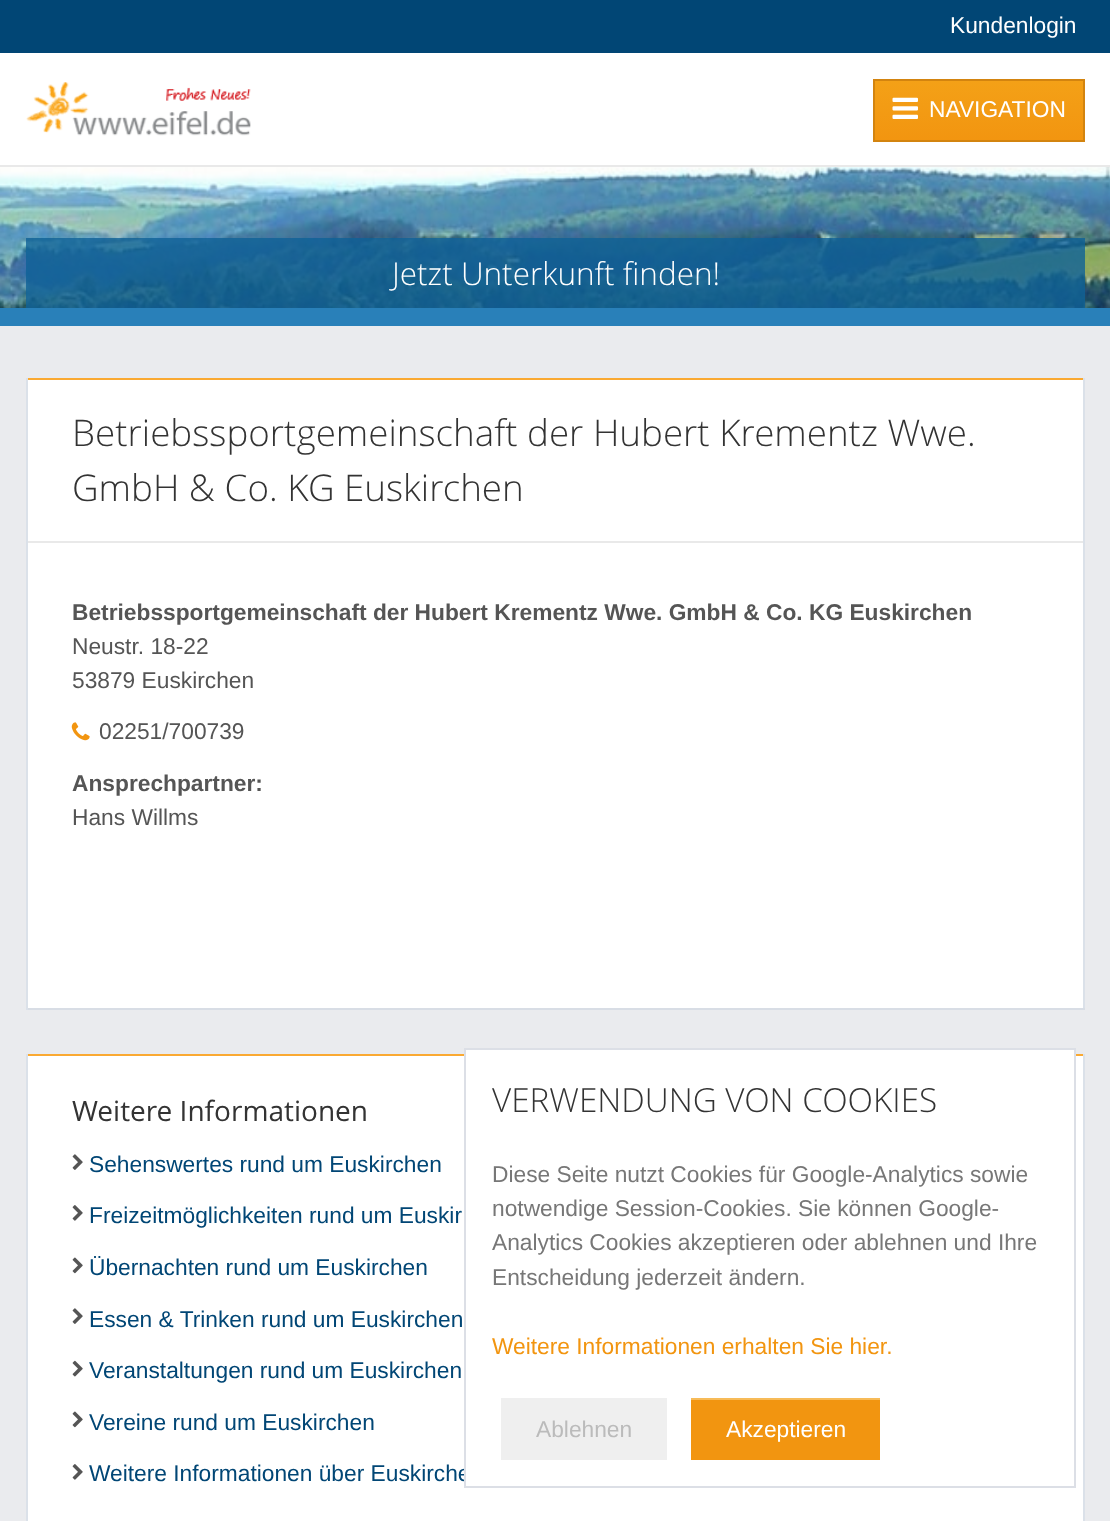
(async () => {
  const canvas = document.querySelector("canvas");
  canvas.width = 1110;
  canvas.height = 1521;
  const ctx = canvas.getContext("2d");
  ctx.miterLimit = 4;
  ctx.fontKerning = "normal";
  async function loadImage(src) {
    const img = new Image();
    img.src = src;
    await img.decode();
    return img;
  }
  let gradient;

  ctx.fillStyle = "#eaebee";
  ctx.fillRect(0, 0, 1110, 1521);
  for (const [x, y, w, h, color] of [
    [0, 0, 1110, 53, "#014675"],
    [0, 53, 1110, 112, "#ffffff"],
    [0, 165, 1110, 2, "#e9e9e9"],
  ]) {
    ctx.fillStyle = color;
    ctx.fillRect(x, y, w, h);
  }
  ctx.drawImage(await loadImage("img/1.png"), 26, 82, 225, 54);
  gradient = ctx.createLinearGradient(979, 80, 979, 140);
  gradient.addColorStop(0, "#f4a117");
  gradient.addColorStop(1, "#f29510");
  ctx.fillStyle = gradient;
  ctx.fillRect(875, 81, 208, 59);
  ctx.strokeStyle = "#d3840f";
  ctx.lineWidth = 2;
  ctx.strokeRect(874, 80, 210, 61);
  ctx.drawImage(await loadImage("img/2.png"), 892, 97, 26, 22);
  ctx.fillStyle = "#2980b9";
  ctx.fillRect(0, 308, 1110, 18);
  ctx.drawImage(await loadImage("img/3.png"), 0, 167, 1110, 141);
  for (const [x, y, w, h, color] of [
    [26, 238, 1059, 70, "rgba(15, 98, 151, 0.8)"],
    [28, 380, 1055, 628, "#ffffff"],
    [26, 378, 1059, 2, "#faa932"],
    [1083, 378, 2, 632, "#dbe1e9"],
    [26, 1008, 1059, 2, "#d8dde5"],
    [26, 378, 2, 632, "#dbe1e9"],
    [28, 541, 1055, 2, "#e9e9e9"],
  ]) {
    ctx.fillStyle = color;
    ctx.fillRect(x, y, w, h);
  }
  ctx.drawImage(await loadImage("img/4.png"), 71, 722, 19, 19);
  for (const [x, y, w, h, color] of [
    [28, 1056, 1055, 465, "#ffffff"],
    [26, 1054, 1059, 2, "#faa932"],
    [1083, 1054, 2, 467, "#dbe1e9"],
    [26, 1054, 2, 467, "#dbe1e9"],
  ]) {
    ctx.fillStyle = color;
    ctx.fillRect(x, y, w, h);
  }
  ctx.drawImage(await loadImage("img/5.png"), 72, 1154, 11, 16);
  ctx.drawImage(await loadImage("img/6.png"), 72, 1205, 11, 16);
  ctx.drawImage(await loadImage("img/7.png"), 72, 1257, 11, 17);
  ctx.drawImage(await loadImage("img/5.png"), 72, 1308, 11, 16);
  ctx.drawImage(await loadImage("img/8.png"), 72, 1360, 11, 17);
  ctx.drawImage(await loadImage("img/7.png"), 72, 1411, 11, 17);
  ctx.drawImage(await loadImage("img/6.png"), 72, 1464, 11, 16);
  ctx.font = "22.75px Liberation Sans";
  ctx.fillStyle = "#ffffff";
  ctx.fillText("Kundenlogin", 950, 33);
  ctx.fillText("NAVIGATION", 929, 117);
  ctx.font = "300 31.5px Open Sans";
  ctx.fillText("Jetzt Unterkunft finden!", 392, 285);
  ctx.font = "300 36.75px Open Sans";
  ctx.fillStyle = "#333333";
  ctx.fillText("Betriebssportgemeinschaft der Hubert Krementz Wwe.", 72, 446);
  ctx.fillText("GmbH & Co. KG Euskirchen", 72, 501);
  ctx.font = "bold 22.75px Liberation Sans";
  ctx.fillStyle = "#555555";
  ctx.fillText("Betriebssportgemeinschaft der Hubert Krementz Wwe. GmbH & Co. KG Euskirchen", 72, 620);
  ctx.font = "22.75px Liberation Sans";
  for (const [text, x, y] of [
    ["Neustr. 18-22", 72, 654],
    ["53879 Euskirchen", 72, 688],
    ["02251/700739", 99, 739],
  ]) {
    ctx.fillText(text, x, y);
  }
  ctx.font = "bold 22.75px Liberation Sans";
  ctx.fillText("Ansprechpartner:", 72, 791);
  ctx.font = "22.75px Liberation Sans";
  ctx.fillText("Hans Willms", 72, 825);
  ctx.font = "28px Open Sans";
  ctx.fillStyle = "#333333";
  ctx.fillText("Weitere Informationen", 72, 1121);
  ctx.font = "22.75px Liberation Sans";
  ctx.fillStyle = "#014675";
  for (const [text, x, y] of [
    ["Sehenswertes rund um Euskirchen", 89, 1172],
    ["Freizeitmöglichkeiten rund um Euskir", 89, 1223],
    ["Übernachten rund um Euskirchen", 89, 1275],
    ["Essen & Trinken rund um Euskirchen", 89, 1327],
    ["Veranstaltungen rund um Euskirchen", 89, 1378],
    ["Vereine rund um Euskirchen", 89, 1430],
    ["Weitere Informationen über Euskirche", 89, 1481],
  ]) {
    ctx.fillText(text, x, y);
  }
  ctx.fillStyle = "#ffffff";
  ctx.fillRect(466, 1050, 608, 432);
  ctx.strokeStyle = "#dcdfe6";
  ctx.strokeRect(465, 1049, 610, 438);
  ctx.font = "300 33.25px Open Sans";
  ctx.fillStyle = "#333333";
  ctx.fillText("VERWENDUNG VON COOKIES", 492, 1112);
  ctx.font = "22.75px Liberation Sans";
  ctx.fillStyle = "#777777";
  for (const [text, x, y] of [
    ["Diese Seite nutzt Cookies für Google-Analytics sowie", 492, 1182],
    ["notwendige Session-Cookies. Sie können Google-", 492, 1216],
    ["Analytics Cookies akzeptieren oder ablehnen und Ihre", 492, 1250],
    ["Entscheidung jederzeit ändern.", 492, 1285],
  ]) {
    ctx.fillText(text, x, y);
  }
  ctx.fillStyle = "#f29510";
  ctx.fillText("Weitere Informationen erhalten Sie hier.", 492, 1354);
  ctx.fillStyle = "#efefef";
  ctx.fillRect(501, 1398, 166, 62);
  ctx.fillStyle = "#bbbbbb";
  ctx.fillText("Ablehnen", 536, 1437);
  ctx.fillStyle = "#f29510";
  ctx.fillRect(691, 1400, 189, 60);
  ctx.fillStyle = "#f7bb58";
  ctx.fillRect(691, 1398, 189, 2);
  ctx.fillStyle = "#ffffff";
  ctx.fillText("Akzeptieren", 726, 1437);
})();
